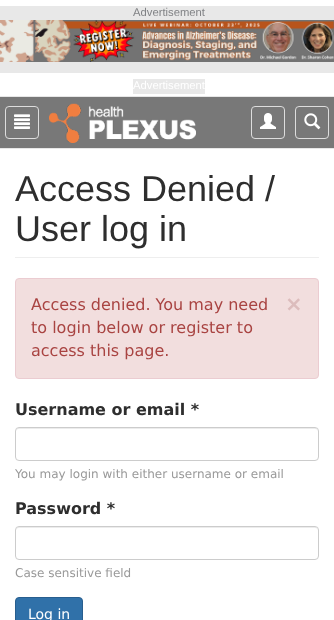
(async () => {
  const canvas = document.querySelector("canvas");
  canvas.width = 334;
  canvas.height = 620;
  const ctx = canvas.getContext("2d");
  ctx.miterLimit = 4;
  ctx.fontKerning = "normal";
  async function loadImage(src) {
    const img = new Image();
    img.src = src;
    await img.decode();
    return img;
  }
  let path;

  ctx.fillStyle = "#ffffff";
  ctx.fillRect(0, 0, 334, 620);
  ctx.fillStyle = "#e8e8e8";
  ctx.fillRect(0, 6, 334, 67);
  ctx.drawImage(await loadImage("img/1.png"), 0, 20, 334, 42);
  for (const [x, y, w, h, color] of [
    [133, 79, 72, 15, "#e8e8e8"],
    [0, 97, 334, 51, "#787878"],
    [0, 96, 334, 1, "#e7e7e7"],
    [0, 148, 334, 1, "#e7e7e7"],
  ]) {
    ctx.fillStyle = color;
    ctx.fillRect(x, y, w, h);
  }
  ctx.beginPath();
  ctx.roundRect(5.5, 106.5, 33, 32, 3.5);
  ctx.strokeStyle = "#dddddd";
  ctx.stroke();
  ctx.drawImage(await loadImage("img/2.png"), 14, 114, 16, 15);
  ctx.drawImage(await loadImage("img/3.png"), 49, 103, 147, 40);
  ctx.beginPath();
  ctx.roundRect(251.5, 106.5, 33, 32, 3.5);
  ctx.stroke();
  ctx.drawImage(await loadImage("img/4.png"), 260, 113, 16, 16);
  ctx.beginPath();
  ctx.roundRect(295.5, 106.5, 33, 32, 3.5);
  ctx.stroke();
  ctx.drawImage(await loadImage("img/5.png"), 304, 113, 17, 17);
  ctx.fillStyle = "#eeeeee";
  ctx.fillRect(15, 257, 304, 1);
  ctx.fillStyle = "#f2dede";
  ctx.beginPath();
  ctx.roundRect(15.5, 278.5, 303, 100, 3.5);
  ctx.fill();
  ctx.strokeStyle = "#ebccd1";
  ctx.stroke();
  ctx.fillStyle = "#ececec";
  path = new Path2D("M19 429H315C317 429 318 430 318 432L317 429L316 428H19C17 428 16 430 16 432C16 430 17 429 19 429Z");
  ctx.fill(path);
  ctx.beginPath();
  ctx.roundRect(15.5, 427.5, 303, 33, 3.5);
  ctx.strokeStyle = "#cccccc";
  ctx.stroke();
  path = new Path2D("M19 528H315C317 528 318 529 318 531L317 528L316 527H19C17 527 16 529 16 531C16 529 17 528 19 528Z");
  ctx.fill(path);
  ctx.beginPath();
  ctx.roundRect(15.5, 526.5, 303, 33, 3.5);
  ctx.stroke();
  ctx.fillStyle = "#3071a9";
  ctx.beginPath();
  ctx.roundRect(15.5, 597.5, 67, 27, 3.5);
  ctx.fill();
  ctx.strokeStyle = "#285e8e";
  ctx.stroke();
  ctx.font = "11.25px Liberation Sans";
  ctx.fillStyle = "#808285";
  ctx.fillText("Advertisement", 133, 16);
  ctx.fillStyle = "#ffffff";
  ctx.fillText("Advertisement", 133, 89);
  ctx.font = "36px Liberation Sans";
  ctx.fillStyle = "#2e2e2e";
  ctx.fillText("Access Denied /", 15, 201);
  ctx.fillText("User log in", 15, 241);
  ctx.font = "16px DejaVu Sans";
  ctx.fillStyle = "#a94442";
  ctx.fillText("Access denied. You may need", 31, 310);
  ctx.font = "bold 21px DejaVu Sans";
  ctx.fillStyle = "#dcbcbc";
  ctx.fillText("×", 285, 311);
  ctx.font = "16px DejaVu Sans";
  ctx.fillStyle = "#a94442";
  ctx.fillText("to login below or register to", 31, 333);
  ctx.fillText("access this page.", 31, 356);
  ctx.font = "bold 16px DejaVu Sans";
  ctx.fillStyle = "#2e2e2e";
  ctx.fillText("Username or email *", 15, 415);
  ctx.font = "12px DejaVu Sans";
  ctx.fillStyle = "#999999";
  ctx.fillText("You may login with either username or email", 15, 478);
  ctx.font = "bold 16px DejaVu Sans";
  ctx.fillStyle = "#2e2e2e";
  ctx.fillText("Password *", 15, 514);
  ctx.font = "12px DejaVu Sans";
  ctx.fillStyle = "#999999";
  ctx.fillText("Case sensitive field", 15, 577);
  ctx.font = "14px DejaVu Sans";
  ctx.fillStyle = "#ffffff";
  ctx.fillText("Log in", 28, 619);
})();
